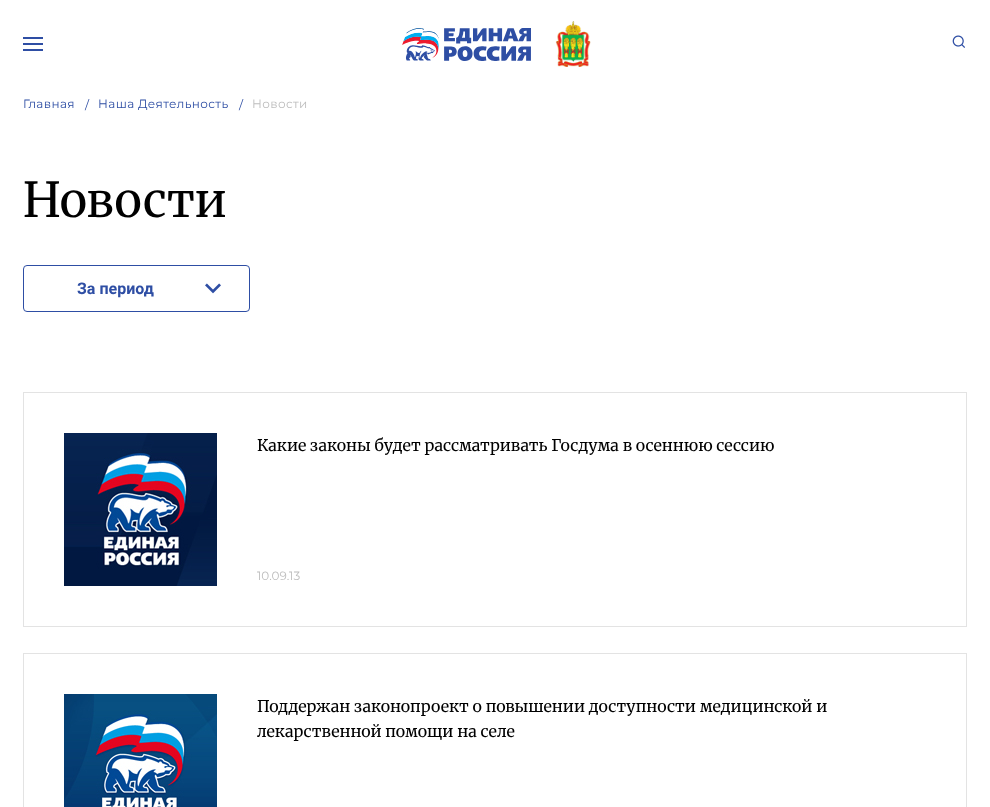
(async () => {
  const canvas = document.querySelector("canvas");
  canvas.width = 990;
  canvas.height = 807;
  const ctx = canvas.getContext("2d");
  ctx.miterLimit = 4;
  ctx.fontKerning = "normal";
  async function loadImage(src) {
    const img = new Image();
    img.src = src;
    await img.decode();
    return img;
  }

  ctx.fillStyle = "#ffffff";
  ctx.fillRect(0, 0, 990, 807);
  for (const [x, y, w, h, color] of [
    [23, 37, 20, 2, "#2e4ea4"],
    [23, 43, 20, 2, "#2e4ea4"],
    [23, 49, 20, 2, "#2e4ea4"],
  ]) {
    ctx.fillStyle = color;
    ctx.fillRect(x, y, w, h);
  }
  ctx.drawImage(await loadImage("img/1.png"), 402, 28, 129, 33);
  ctx.drawImage(await loadImage("img/2.png"), 555, 21, 36, 46);
  ctx.drawImage(await loadImage("img/3.png"), 952, 35, 13, 13);
  ctx.beginPath();
  ctx.roundRect(23.5, 265.5, 226, 46, 3.5);
  ctx.strokeStyle = "#2e4ea4";
  ctx.stroke();
  ctx.drawImage(await loadImage("img/4.png"), 205, 283, 16, 11);
  ctx.strokeStyle = "#e3e3e3";
  ctx.strokeRect(23.5, 392.5, 943, 234);
  ctx.drawImage(await loadImage("img/5.png"), 64, 433, 153, 153);
  ctx.strokeRect(23.5, 653.5, 943, 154);
  ctx.drawImage(await loadImage("img/6.png"), 64, 694, 153, 113);
  ctx.letterSpacing = "0.4px";
  ctx.font = "12px Montserrat";
  for (const [text, x, y] of [
    ["Главная", 23, 108],
    ["/", 85, 109],
    ["Наша Деятельность", 98, 108],
    ["/", 239, 109],
  ]) {
    ctx.fillText(text, x, y);
  }
  ctx.fillStyle = "#bdbdbd";
  ctx.fillText("Новости", 252, 108);
  ctx.letterSpacing = "0px";
  ctx.font = "48px Merriweather";
  ctx.fillStyle = "#000000";
  ctx.fillText("Новости", 23, 217);
  ctx.font = "bold 16px Roboto";
  ctx.fillStyle = "#2e4ea4";
  ctx.fillText("За период", 77, 294);
  ctx.font = "16px 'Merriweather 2'";
  ctx.fillStyle = "#000000";
  ctx.fillText("Какие законы будет рассматривать Госдума в осеннюю сессию", 257, 451);
  ctx.font = "12px Montserrat";
  ctx.fillStyle = "#bdbdbd";
  ctx.fillText("10.09.13", 257, 580);
  ctx.font = "16px 'Merriweather 2'";
  ctx.fillStyle = "#000000";
  ctx.fillText("Поддержан законопроект о повышении доступности медицинской и", 257, 712);
  ctx.fillText("лекарственной помощи на селе", 257, 737);
})();
